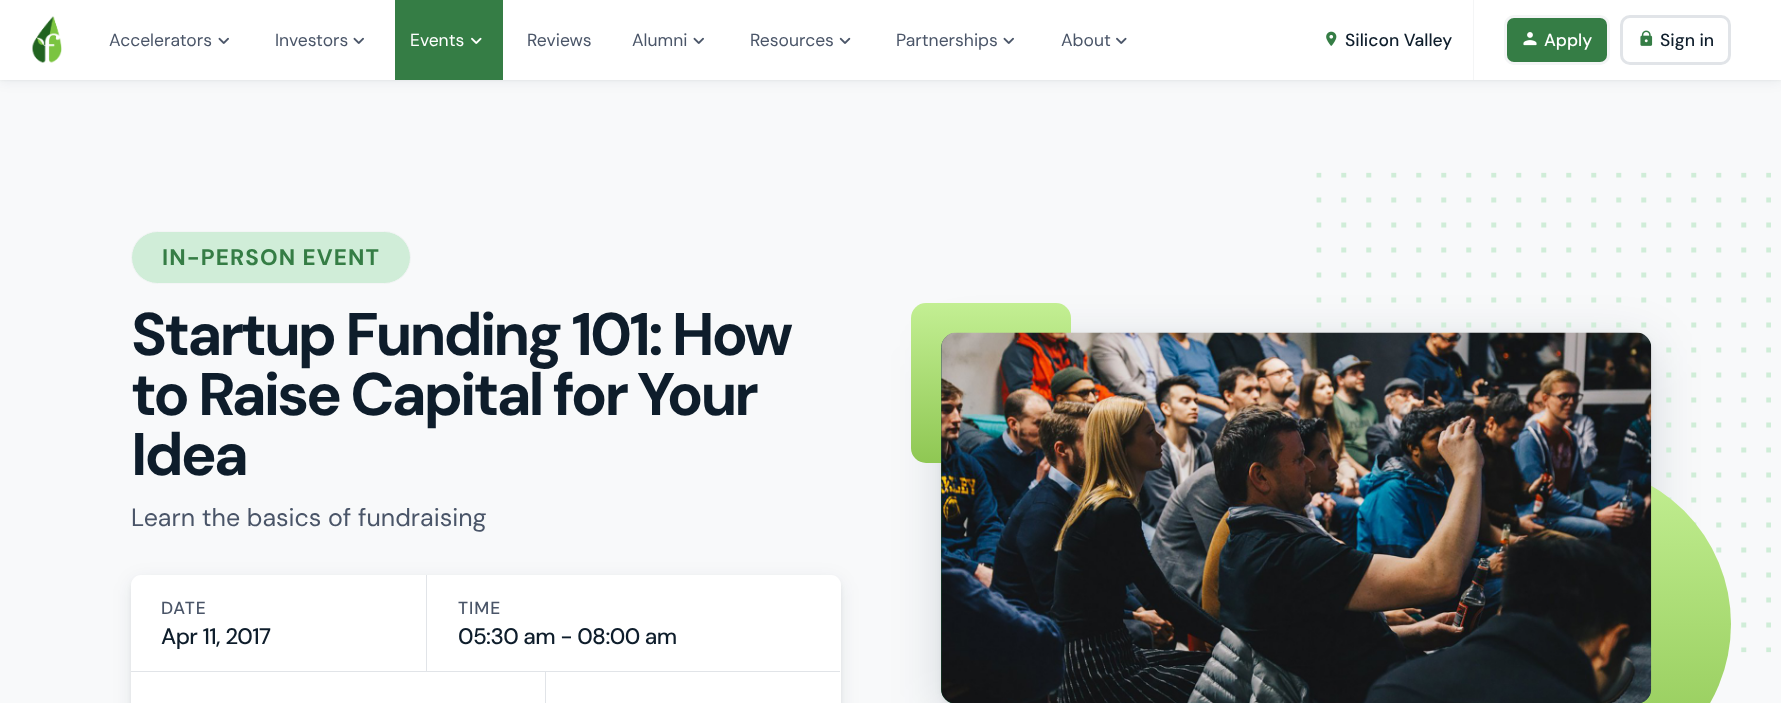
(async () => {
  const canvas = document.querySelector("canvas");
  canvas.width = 1781;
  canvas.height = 703;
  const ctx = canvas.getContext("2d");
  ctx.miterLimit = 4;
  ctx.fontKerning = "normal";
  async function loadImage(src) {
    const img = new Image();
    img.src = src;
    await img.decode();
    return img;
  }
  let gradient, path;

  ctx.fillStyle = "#f8f9fa";
  ctx.fillRect(0, 0, 1781, 703);
  ctx.fillStyle = "rgba(0, 0, 0, 0.04)";
  ctx.filter = "blur(1px)";
  ctx.beginPath();
  ctx.rect(0, 1, 1781, 80);
  ctx.fill();
  ctx.filter = "none";
  ctx.fillStyle = "rgba(3, 24, 52, 0.05)";
  ctx.filter = "blur(6px)";
  ctx.beginPath();
  ctx.rect(0, 3, 1781, 80);
  ctx.fill();
  ctx.filter = "none";
  ctx.fillStyle = "#ffffff";
  ctx.fillRect(0, 0, 1781, 80);
  ctx.drawImage(await loadImage("img/1.png"), 32, 16, 30, 47);
  ctx.drawImage(await loadImage("img/2.png"), 218, 37, 11, 7);
  ctx.drawImage(await loadImage("img/2.png"), 353, 37, 11, 7);
  ctx.fillStyle = "#357d45";
  ctx.fillRect(395, 0, 108, 80);
  ctx.drawImage(await loadImage("img/3.png"), 471, 37, 11, 7);
  ctx.drawImage(await loadImage("img/2.png"), 693, 37, 11, 7);
  ctx.drawImage(await loadImage("img/4.png"), 839, 37, 12, 7);
  ctx.drawImage(await loadImage("img/2.png"), 1003, 37, 11, 7);
  ctx.drawImage(await loadImage("img/5.png"), 1116, 37, 11, 7);
  ctx.fillStyle = "#f4f5f6";
  ctx.fillRect(1473, 0, 1, 80);
  ctx.drawImage(await loadImage("img/6.png"), 1326, 31, 11, 15);
  ctx.fillStyle = "#357d45";
  ctx.beginPath();
  ctx.roundRect(1505.5, 16.5, 103, 47, 8.5);
  ctx.fill();
  ctx.strokeStyle = "#f4f5f6";
  ctx.lineWidth = 3;
  ctx.stroke();
  ctx.drawImage(await loadImage("img/7.png"), 1523, 32, 14, 14);
  ctx.beginPath();
  ctx.roundRect(1621.5, 16.5, 108, 47, 8.5);
  ctx.strokeStyle = "#e1e4e8";
  ctx.stroke();
  ctx.drawImage(await loadImage("img/8.png"), 1640, 30, 13, 16);
  ctx.fillStyle = "#d0edd8";
  ctx.beginPath();
  ctx.roundRect(131.5, 231.5, 279, 52, 26);
  ctx.fill();
  ctx.strokeStyle = "#f4f5f6";
  ctx.lineWidth = 1;
  ctx.stroke();
  ctx.fillStyle = "rgba(0, 0, 0, 0.05)";
  ctx.filter = "blur(2.5px)";
  ctx.beginPath();
  ctx.roundRect(131, 578, 710, 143, 10);
  ctx.fill();
  ctx.filter = "none";
  ctx.fillStyle = "rgba(3, 24, 52, 0.08)";
  ctx.filter = "blur(9.5px)";
  ctx.beginPath();
  ctx.roundRect(131, 580, 710, 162, 10);
  ctx.fill();
  ctx.filter = "none";
  ctx.fillStyle = "#ffffff";
  path = new Path2D("M141 575H831C836.5 575 841 579.5 841 585V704H131V585C131 579.5 135.5 575 141 575Z");
  ctx.fill(path);
  for (const [x, y, w, h, color] of [
    [426, 575, 1, 96, "#e1e4e8"],
    [131, 671, 709, 1, "#e1e4e8"],
    [545, 671, 1, 32, "#e1e4e8"],
  ]) {
    ctx.fillStyle = color;
    ctx.fillRect(x, y, w, h);
  }
  ctx.fillStyle = "rgba(0, 0, 0, 0.06)";
  ctx.filter = "blur(3px)";
  ctx.beginPath();
  ctx.roundRect(941, 335, 710, 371, 15);
  ctx.fill();
  ctx.filter = "none";
  ctx.fillStyle = "rgba(3, 24, 52, 0.15)";
  ctx.filter = "blur(25px)";
  ctx.beginPath();
  ctx.roundRect(941, 345, 710, 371, 15);
  ctx.fill();
  ctx.filter = "none";
  ctx.drawImage(await loadImage("img/9.png"), 1316, 172, 455, 481);
  gradient = ctx.createLinearGradient(991, 303, 991, 463);
  gradient.addColorStop(0, "#c3ef93");
  gradient.addColorStop(1, "#8fc753");
  ctx.fillStyle = gradient;
  ctx.beginPath();
  ctx.roundRect(911, 303, 160, 160, 15);
  ctx.fill();
  gradient = ctx.createLinearGradient(1571, 464, 1571, 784);
  gradient.addColorStop(0, "#c3ef93");
  gradient.addColorStop(1, "#8fc753");
  ctx.fillStyle = gradient;
  ctx.beginPath();
  ctx.arc(1571, 624, 160, 0, Math.PI * 2);
  ctx.fill();
  gradient = ctx.createLinearGradient(1144, 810, 1449, 227);
  gradient.addColorStop(0, "#155231");
  gradient.addColorStop(1, "#2e7142");
  ctx.fillStyle = gradient;
  ctx.beginPath();
  ctx.roundRect(941, 333, 710, 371, 15);
  ctx.fill();
  ctx.drawImage(await loadImage("img/10.png"), 941, 332, 711, 371);
  ctx.font = "17.5px DM Sans";
  ctx.fillStyle = "#4a5568";
  ctx.fillText("Accelerators", 109, 46);
  ctx.fillText("Investors", 275, 46);
  ctx.fillStyle = "#ffffff";
  ctx.fillText("Events", 410, 46);
  ctx.fillStyle = "#4a5568";
  for (const [text, x, y] of [
    ["Reviews", 527, 46],
    ["Alumni", 632, 46],
    ["Resources", 750, 46],
    ["Partnerships", 896, 46],
    ["About", 1061, 46],
  ]) {
    ctx.fillText(text, x, y);
  }
  ctx.font = "500 17.5px DM Sans";
  ctx.fillStyle = "#0e1d2b";
  ctx.fillText("Silicon Valley", 1345, 46);
  ctx.fillStyle = "#ffffff";
  ctx.fillText("Apply", 1544, 46);
  ctx.fillStyle = "#0e1d2b";
  ctx.fillText("Sign in", 1660, 46);
  ctx.letterSpacing = "1.1px";
  ctx.font = "bold 22.5px DM Sans";
  ctx.fillStyle = "#357d45";
  ctx.fillText("IN-PERSON EVENT", 162, 265);
  ctx.letterSpacing = "-3px";
  ctx.font = "bold 60px DM Sans";
  ctx.fillStyle = "#0e1d2b";
  for (const [text, x, y] of [
    ["Startup Funding 101: How", 131, 355],
    ["to Raise Capital for Your", 131, 415],
    ["Idea", 131, 475],
  ]) {
    ctx.fillText(text, x, y);
  }
  ctx.letterSpacing = "0px";
  ctx.font = "25px DM Sans";
  ctx.fillStyle = "#4a5568";
  ctx.fillText("Learn the basics of fundraising", 131, 526);
  ctx.letterSpacing = "1px";
  ctx.font = "500 17.5px DM Sans";
  ctx.fillText("DATE", 161, 614);
  ctx.letterSpacing = "-0.6px";
  ctx.font = "500 22.5px DM Sans";
  ctx.fillStyle = "#0e1d2b";
  ctx.fillText("Apr 11, 2017", 161, 644);
  ctx.letterSpacing = "1px";
  ctx.font = "500 17.5px DM Sans";
  ctx.fillStyle = "#4a5568";
  ctx.fillText("TIME", 458, 614);
  ctx.letterSpacing = "-0.6px";
  ctx.font = "500 22.5px DM Sans";
  ctx.fillStyle = "#0e1d2b";
  ctx.fillText("05:30 am - 08:00 am", 458, 644);
})();
